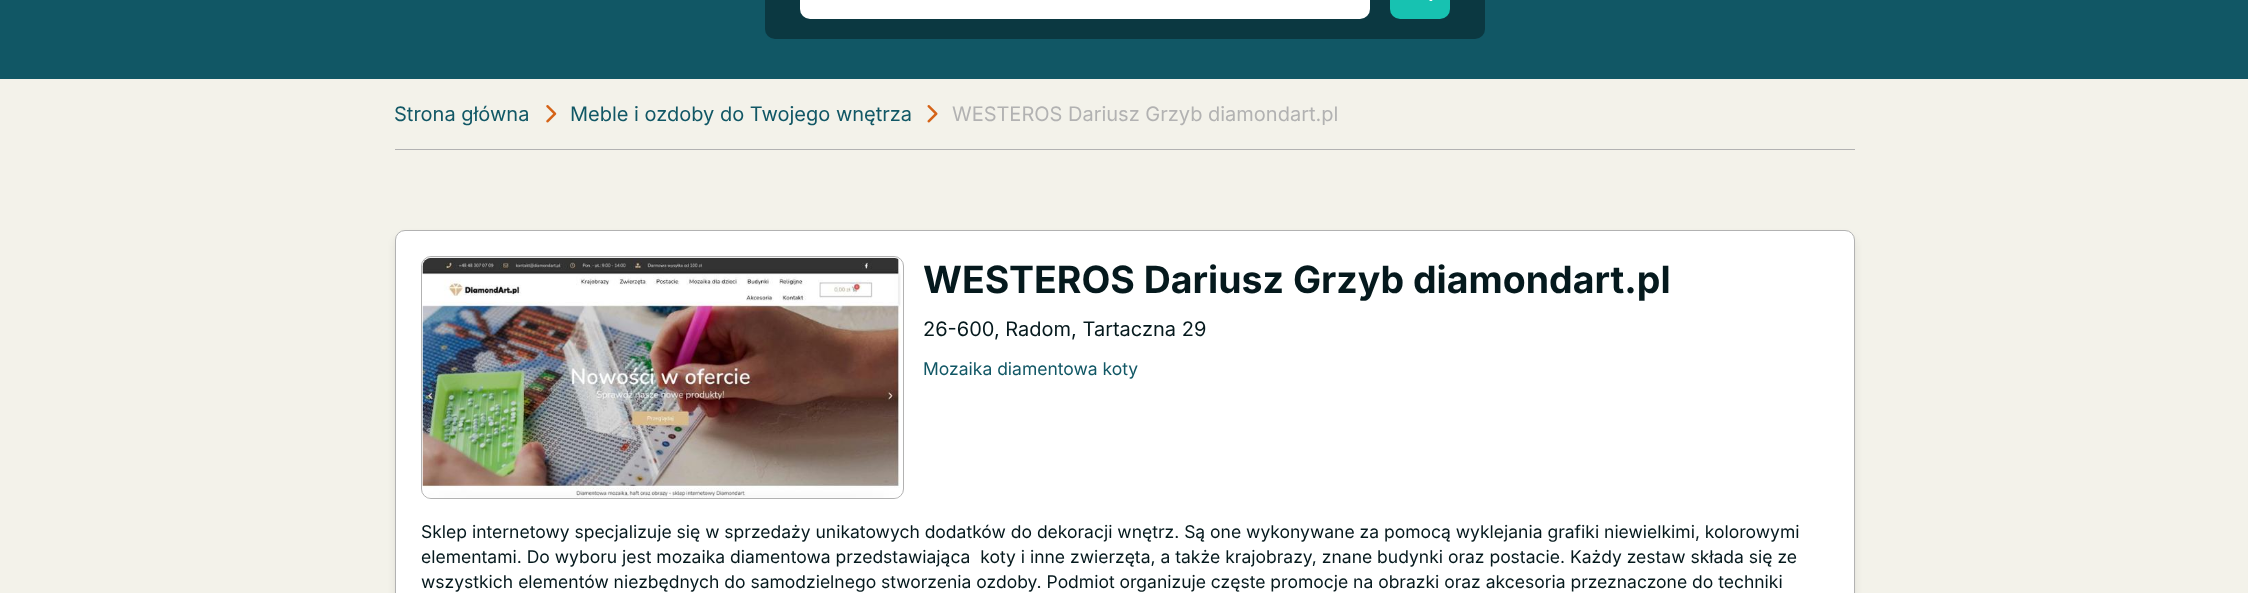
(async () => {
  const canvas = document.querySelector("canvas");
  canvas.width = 2248;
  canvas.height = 593;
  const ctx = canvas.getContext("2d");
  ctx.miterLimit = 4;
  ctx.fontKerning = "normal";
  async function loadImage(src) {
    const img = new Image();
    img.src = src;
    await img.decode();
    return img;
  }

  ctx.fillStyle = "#f3f2ea";
  ctx.fillRect(0, 0, 2248, 593);
  ctx.fillStyle = "#115765";
  ctx.fillRect(0, 0, 2248, 79);
  ctx.fillStyle = "#0b3841";
  ctx.beginPath();
  ctx.roundRect(765, -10, 720, 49, 10);
  ctx.fill();
  ctx.fillStyle = "#ffffff";
  ctx.beginPath();
  ctx.roundRect(800, -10, 570, 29, 10);
  ctx.fill();
  ctx.fillStyle = "#17c2b1";
  ctx.beginPath();
  ctx.roundRect(1390, -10, 60, 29, 10);
  ctx.fill();
  ctx.drawImage(await loadImage("img/1.png"), 1429, 0, 4, 1);
  ctx.fillStyle = "#b2b2b2";
  ctx.fillRect(395, 149, 1460, 1);
  ctx.drawImage(await loadImage("img/2.png"), 546, 105, 11, 18);
  ctx.drawImage(await loadImage("img/3.png"), 927, 105, 11, 18);
  ctx.fillStyle = "rgba(0, 0, 0, 0.1)";
  ctx.filter = "blur(4px)";
  ctx.beginPath();
  ctx.roundRect(396, 236, 1458, 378, 9);
  ctx.fill();
  ctx.filter = "none";
  ctx.fillStyle = "#ffffff";
  ctx.beginPath();
  ctx.roundRect(395.5, 230.5, 1459, 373, 9.5);
  ctx.fill();
  ctx.strokeStyle = "#b2b2b2";
  ctx.stroke();
  ctx.beginPath();
  ctx.roundRect(421.5, 256.5, 482, 242, 9.5);
  ctx.stroke();
  ctx.drawImage(await loadImage("img/4.png"), 422, 257, 479, 241);
  ctx.font = "20px Inter";
  ctx.fillStyle = "#115765";
  ctx.fillText("Strona główna", 394, 121);
  ctx.fillText("Meble i ozdoby do Twojego wnętrza", 570, 121);
  ctx.fillStyle = "#b2b2b2";
  ctx.fillText("WESTEROS Dariusz Grzyb diamondart.pl", 952, 121);
  ctx.font = "bold 37.5px Inter";
  ctx.fillStyle = "#05191d";
  ctx.fillText("WESTEROS Dariusz Grzyb diamondart.pl", 923, 293);
  ctx.font = "20px Inter";
  ctx.fillText("26-600, Radom, Tartaczna 29", 923, 336);
  ctx.font = "17.5px Inter";
  ctx.fillStyle = "#115765";
  ctx.fillText("Mozaika diamentowa koty", 923, 375);
  ctx.fillStyle = "#05191d";
  for (const [text, x, y] of [
    ["Sklep internetowy specjalizuje się w sprzedaży unikatowych dodatków do dekoracji wnętrz. Są one wykonywane za pomocą wyklejania grafiki niewielkimi, kolorowymi", 421, 538],
    ["elementami. Do wyboru jest mozaika diamentowa przedstawiająca  koty i inne zwierzęta, a także krajobrazy, znane budynki oraz postacie. Każdy zestaw składa się ze", 421, 563],
    ["wszystkich elementów niezbędnych do samodzielnego stworzenia ozdoby. Podmiot organizuje częste promocje na obrazki oraz akcesoria przeznaczone do techniki", 421, 588],
  ]) {
    ctx.fillText(text, x, y);
  }
})();
